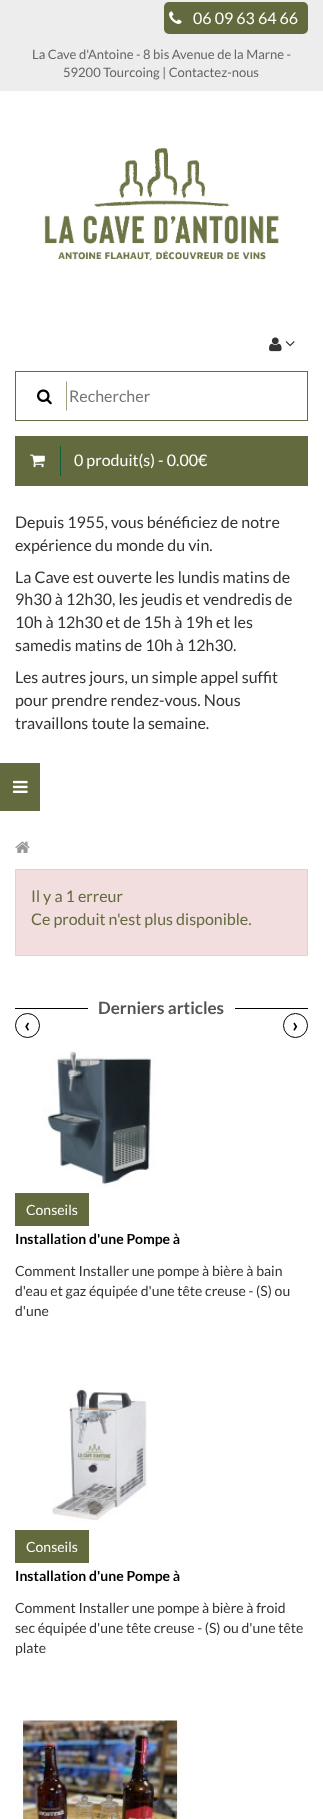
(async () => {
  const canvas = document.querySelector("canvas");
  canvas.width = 323;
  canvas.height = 1819;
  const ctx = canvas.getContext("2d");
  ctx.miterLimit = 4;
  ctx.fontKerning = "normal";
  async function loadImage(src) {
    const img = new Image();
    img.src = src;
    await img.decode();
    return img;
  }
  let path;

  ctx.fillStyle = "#ffffff";
  ctx.fillRect(0, 0, 323, 1819);
  ctx.fillStyle = "#ededed";
  ctx.fillRect(0, 0, 323, 91);
  ctx.fillStyle = "#636b3e";
  ctx.beginPath();
  ctx.roundRect(164, 2, 144, 32, 5);
  ctx.fill();
  ctx.drawImage(await loadImage("img/1.png"), 169, 11, 13, 13);
  ctx.drawImage(await loadImage("img/2.png"), 44, 147, 235, 114);
  ctx.drawImage(await loadImage("img/3.png"), 269, 337, 13, 15);
  ctx.drawImage(await loadImage("img/4.png"), 285, 341, 10, 6);
  ctx.strokeStyle = "#636b3e";
  ctx.strokeRect(15.5, 371.5, 292, 49);
  ctx.fillStyle = "#a4a17e";
  path = new Path2D("M67 381V411L66 410V382Z");
  ctx.fill(path);
  ctx.drawImage(await loadImage("img/5.png"), 37, 389, 15, 16);
  ctx.fillStyle = "#636b3e";
  ctx.fillRect(15, 436, 293, 50);
  ctx.fillStyle = "#105e3b";
  ctx.fillRect(60, 446, 1, 30);
  ctx.drawImage(await loadImage("img/6.png"), 30, 454, 15, 14);
  ctx.fillStyle = "#636b3e";
  ctx.fillRect(0, 763, 40, 48);
  ctx.drawImage(await loadImage("img/7.png"), 13, 780, 15, 13);
  ctx.drawImage(await loadImage("img/8.png"), 15, 841, 15, 12);
  ctx.fillStyle = "#f2dede";
  ctx.beginPath();
  ctx.rect(15.5, 869.5, 292, 86);
  ctx.fill();
  ctx.strokeStyle = "#ebccd1";
  ctx.stroke();
  ctx.fillStyle = "#000000";
  ctx.fillRect(15, 1008, 293, 1);
  ctx.fillStyle = "#ffffff";
  ctx.fillRect(88, 1008, 147, 1);
  ctx.beginPath();
  ctx.arc(27.5, 1025.5, 12, 0, Math.PI * 2);
  ctx.strokeStyle = "#000000";
  ctx.stroke();
  ctx.beginPath();
  ctx.arc(295.5, 1025.5, 12, 0, Math.PI * 2);
  ctx.stroke();
  ctx.drawImage(await loadImage("img/9.png"), 43, 1050, 113, 137);
  ctx.fillStyle = "#636b3e";
  ctx.fillRect(15, 1193, 74, 33);
  ctx.drawImage(await loadImage("img/10.png"), 52, 1384, 95, 138);
  ctx.fillRect(15, 1530, 74, 33);
  ctx.drawImage(await loadImage("img/11.png"), 15, 1720, 167, 99);
  ctx.font = "16px Lato";
  ctx.fillStyle = "#ffffff";
  ctx.fillText("06 09 63 64 66", 193, 24);
  ctx.font = "13px Lato";
  ctx.fillStyle = "#666666";
  ctx.fillText("La Cave d'Antoine - 8 bis Avenue de la Marne -", 32, 59);
  ctx.fillText("59200 Tourcoing | Contactez-nous", 63, 77);
  ctx.font = "16px Lato";
  ctx.fillStyle = "#757575";
  ctx.fillText("Rechercher", 69, 402);
  ctx.fillStyle = "#ffffff";
  ctx.fillText("0 produit(s) - 0.00€", 74, 466);
  ctx.fillStyle = "#333333";
  for (const [text, x, y] of [
    ["Depuis 1955, vous bénéficiez de notre", 15, 528],
    ["expérience du monde du vin.", 15, 551],
    ["La Cave est ouverte les lundis matins de", 15, 583],
    ["9h30 à 12h30, les jeudis et vendredis de", 15, 605],
    ["10h à 12h30 et de 15h à 19h et les", 15, 628],
    ["samedis matins de 10h à 12h30.", 15, 651],
    ["Les autres jours, un simple appel suffit", 15, 683],
    ["pour prendre rendez-vous. Nous", 15, 706],
    ["travaillons toute la semaine.", 15, 729],
  ]) {
    ctx.fillText(text, x, y);
  }
  ctx.fillStyle = "#636b3e";
  ctx.fillText("Il y a 1 erreur", 31, 902);
  ctx.fillText("Ce produit n'est plus disponible.", 31, 925);
  ctx.font = "bold 17px Lato";
  ctx.fillStyle = "#535353";
  ctx.fillText("Derniers articles", 98, 1014);
  ctx.font = "bold 20px Lato";
  ctx.fillStyle = "#000000";
  ctx.fillText("‹", 24, 1032);
  ctx.fillText("›", 292, 1032);
  ctx.font = "14px Lato";
  ctx.fillStyle = "#ffffff";
  ctx.fillText("Conseils", 26, 1215);
  ctx.font = "bold 14px Lato";
  ctx.fillStyle = "#000000";
  ctx.fillText("Installation d'une Pompe à", 15, 1244);
  ctx.font = "14px Lato";
  ctx.fillStyle = "#333333";
  for (const [text, x, y] of [
    ["Comment Installer une pompe à bière à bain", 15, 1276],
    ["d'eau et gaz équipée d'une tête creuse - (S) ou", 15, 1296],
    ["d'une", 15, 1316],
  ]) {
    ctx.fillText(text, x, y);
  }
  ctx.fillStyle = "#ffffff";
  ctx.fillText("Conseils", 26, 1552);
  ctx.font = "bold 14px Lato";
  ctx.fillStyle = "#000000";
  ctx.fillText("Installation d'une Pompe à", 15, 1581);
  ctx.font = "14px Lato";
  ctx.fillStyle = "#333333";
  for (const [text, x, y] of [
    ["Comment Installer une pompe à bière à froid", 15, 1613],
    ["sec équipée d'une tête creuse - (S) ou d'une tête", 15, 1633],
    ["plate", 15, 1653],
  ]) {
    ctx.fillText(text, x, y);
  }
})();
